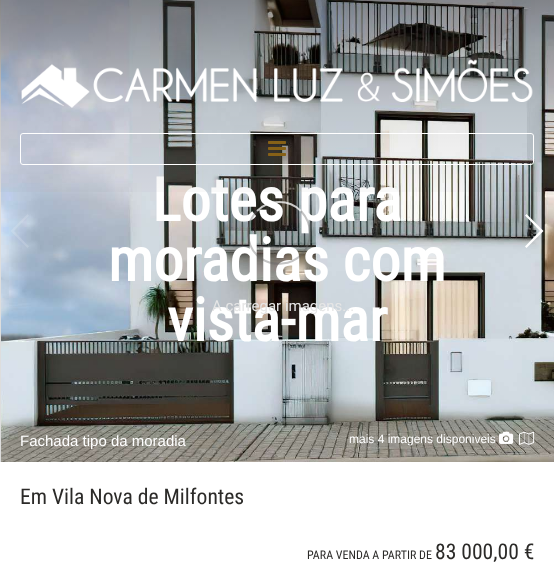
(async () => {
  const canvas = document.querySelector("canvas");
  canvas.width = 554;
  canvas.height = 581;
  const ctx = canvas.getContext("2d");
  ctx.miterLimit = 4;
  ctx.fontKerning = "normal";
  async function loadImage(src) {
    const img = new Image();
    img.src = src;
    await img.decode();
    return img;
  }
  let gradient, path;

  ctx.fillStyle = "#ffffff";
  ctx.fillRect(0, 0, 554, 581);
  ctx.drawImage(await loadImage("img/3.png"), 1, 0, 553, 462);
  ctx.save();
  ctx.beginPath();
  ctx.rect(0, 0, 554, 462);
  ctx.clip();
  ctx.beginPath();
  ctx.roundRect(0.5, -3.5, 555, 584, 2.5);
  ctx.strokeStyle = "#dddddd";
  ctx.stroke();
  ctx.restore();
  ctx.fillStyle = "rgba(255, 255, 255, 0.15)";
  path = new Path2D("M10.5 231L27.5 214L29 215.5L14 231L29 246.5L27.5 248Z");
  ctx.fill(path);
  ctx.fillStyle = "#ffffff";
  path = new Path2D("M543.5 231L526.5 248L525 246.5L540 231L525 215.5L526.5 214Z");
  ctx.fill(path);
  ctx.drawImage(await loadImage("img/4.png"), 499, 431, 15, 13);
  ctx.drawImage(await loadImage("img/5.png"), 519, 431, 16, 14);
  ctx.font = "bold 60px Roboto Condensed";
  ctx.fillText("Lotes para", 152, 221);
  gradient = ctx.createLinearGradient(277, 0, 277, 215);
  gradient.addColorStop(0, "rgba(0, 0, 0, 0.4)");
  gradient.addColorStop(0.5, "rgba(0, 0, 0, 0.1)");
  gradient.addColorStop(1, "rgba(0, 0, 0, 0)");
  ctx.fillStyle = gradient;
  ctx.fillRect(0, 0, 554, 192);
  ctx.beginPath();
  ctx.roundRect(20.5, 133.5, 513, 31, 2.5);
  ctx.strokeStyle = "#ffffff";
  ctx.stroke();
  ctx.drawImage(await loadImage("img/2.png"), 268, 141, 18, 15);
  ctx.drawImage(await loadImage("img/1.png"), 21, 59, 512, 49);
  ctx.fillStyle = "#ffffff";
  ctx.fillText("moradias com", 108, 281);
  ctx.fillText("vista-mar", 167, 341);
  path = new Path2D("M257 211C269 199 289 199 301 211");
  ctx.strokeStyle = "rgba(255, 255, 255, 0.75)";
  ctx.lineWidth = 2;
  ctx.stroke(path);
  path = new Path2D("M301 211C306.5 217 310 225 310 233C310 270 256 275.5 248.5 239C246.5 229 250 218.5 257 211");
  ctx.strokeStyle = "rgba(100, 100, 100, 0.38)";
  ctx.stroke(path);
  ctx.font = "15px Roboto";
  ctx.fillStyle = "#e6e6e6";
  ctx.fillText("A carregar imagens...", 212, 311);
  ctx.font = "15px Liberation Sans";
  ctx.fillStyle = "#ffffff";
  ctx.fillText("Fachada tipo da moradia", 20, 446);
  ctx.font = "12px Liberation Sans";
  ctx.fillText("mais 4 imagens disponiveis", 349, 443);
  ctx.font = "21.6px Roboto Condensed";
  ctx.fillStyle = "#2b2a28";
  ctx.fillText("Em Vila Nova de Milfontes", 20, 504);
  ctx.font = "12px Roboto Condensed";
  ctx.fillText("PARA VENDA A PARTIR DE", 307, 559);
  ctx.font = "21.6px Roboto Condensed";
  ctx.fillText("83 000,00 €", 435, 559);
})();
